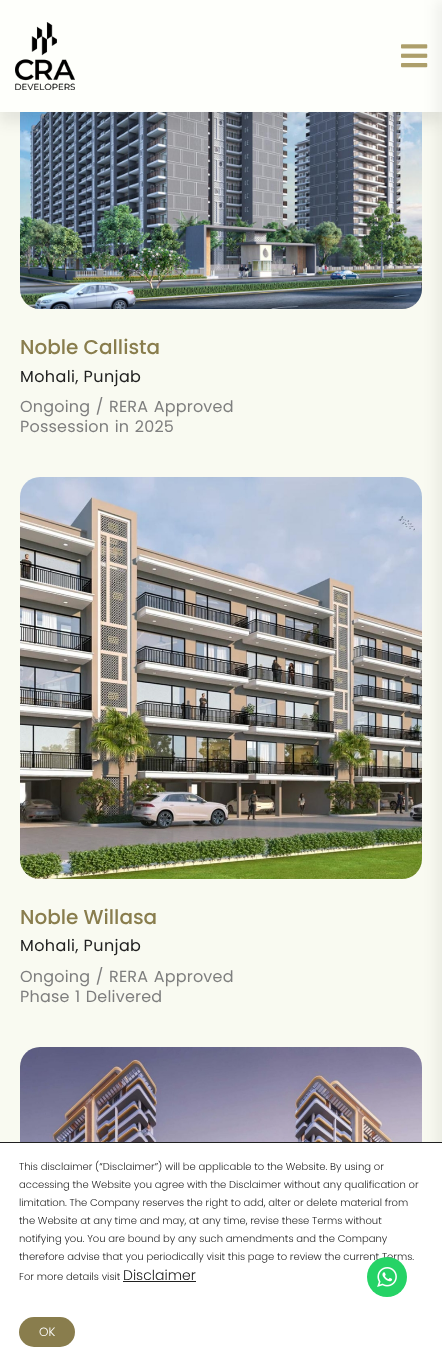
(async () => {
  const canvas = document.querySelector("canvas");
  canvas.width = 442;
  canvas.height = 1365;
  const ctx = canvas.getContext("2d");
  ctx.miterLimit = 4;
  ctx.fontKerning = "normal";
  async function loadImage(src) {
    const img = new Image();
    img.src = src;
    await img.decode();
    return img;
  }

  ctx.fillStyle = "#f9faf1";
  ctx.fillRect(0, 0, 442, 1365);
  ctx.drawImage(await loadImage("img/3.png"), 20, 112, 402, 197);
  ctx.fillStyle = "rgba(25, 25, 25, 0.1)";
  ctx.filter = "blur(7.5px)";
  ctx.beginPath();
  ctx.rect(0, 10, 442, 112);
  ctx.fill();
  ctx.filter = "none";
  ctx.fillStyle = "#fefffb";
  ctx.fillRect(0, 0, 442, 112);
  ctx.drawImage(await loadImage("img/1.png"), 15, 22, 60, 68);
  ctx.drawImage(await loadImage("img/2.png"), 401, 44, 27, 24);
  ctx.drawImage(await loadImage("img/4.png"), 20, 477, 402, 402);
  ctx.drawImage(await loadImage("img/5.png"), 20, 1047, 402, 95);
  ctx.fillStyle = "rgba(0, 0, 0, 0.06)";
  ctx.filter = "blur(7px)";
  ctx.beginPath();
  ctx.rect(436, 0, 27, 1365);
  ctx.fill();
  ctx.filter = "none";
  for (const [x, y, w, h, color] of [
    [0, 1143, 442, 222, "#ffffff"],
    [0, 1142, 442, 1, "#202020"],
    [123, 1281, 73, 1, "#202020"],
  ]) {
    ctx.fillStyle = color;
    ctx.fillRect(x, y, w, h);
  }
  ctx.fillStyle = "#897d4d";
  ctx.beginPath();
  ctx.roundRect(19, 1317, 56, 30, 15);
  ctx.fill();
  ctx.font = "500 20px Poppins";
  ctx.fillText("Noble Callista", 20, 354);
  ctx.letterSpacing = "0.4px";
  ctx.font = "16px Poppins";
  ctx.fillStyle = "#202020";
  ctx.fillText("Mohali, Punjab", 20, 382);
  ctx.letterSpacing = "0.2px";
  ctx.wordSpacing = "1px";
  ctx.fillStyle = "#7e7e7e";
  ctx.fillText("Ongoing / RERA Approved", 20, 412);
  ctx.fillText("Possession in 2025", 20, 432);
  ctx.letterSpacing = "0px";
  ctx.wordSpacing = "0px";
  ctx.font = "500 20px Poppins";
  ctx.fillStyle = "#897d4d";
  ctx.fillText("Noble Willasa", 20, 924);
  ctx.letterSpacing = "0.4px";
  ctx.font = "16px Poppins";
  ctx.fillStyle = "#202020";
  ctx.fillText("Mohali, Punjab", 20, 951);
  ctx.letterSpacing = "0.2px";
  ctx.wordSpacing = "1px";
  ctx.fillStyle = "#7e7e7e";
  ctx.fillText("Ongoing / RERA Approved", 20, 982);
  ctx.fillText("Phase 1 Delivered", 20, 1002);
  ctx.letterSpacing = "0px";
  ctx.wordSpacing = "0px";
  ctx.font = "300 10px Poppins";
  ctx.fillStyle = "#202020";
  for (const [text, x, y] of [
    ["This disclaimer (“Disclaimer”) will be applicable to the Website. By using or", 19, 1170],
    ["accessing the Website you agree with the Disclaimer without any qualification or", 19, 1188],
    ["limitation. The Company reserves the right to add, alter or delete material from", 19, 1206],
    ["the Website at any time and may, at any time, revise these Terms without", 19, 1224],
    ["notifying you. You are bound by any such amendments and the Company", 19, 1242],
    ["therefore advise that you periodically visit this page to review the current Terms.", 19, 1260],
    ["For more details visit", 19, 1280],
  ]) {
    ctx.fillText(text, x, y);
  }
  ctx.font = "300 14px Poppins";
  ctx.fillText("Disclaimer", 123, 1280);
  ctx.font = "300 12px Poppins";
  ctx.fillStyle = "#ffffff";
  ctx.fillText("OK", 39, 1336);
  ctx.fillStyle = "#25d366";
  ctx.beginPath();
  ctx.arc(387, 1277, 20, 0, Math.PI * 2);
  ctx.fill();
  ctx.drawImage(await loadImage("img/6.png"), 377, 1267, 20, 20);
})();
